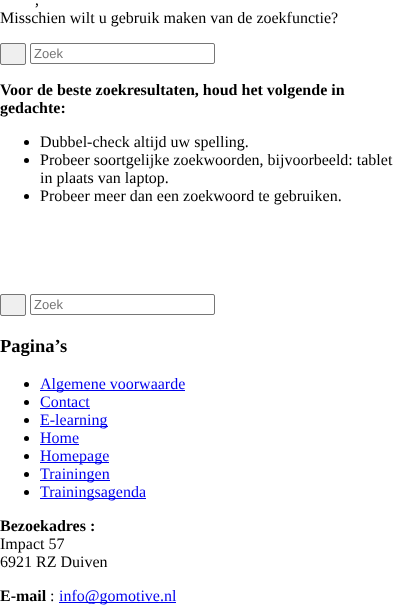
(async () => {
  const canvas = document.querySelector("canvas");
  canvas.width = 402;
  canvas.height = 611;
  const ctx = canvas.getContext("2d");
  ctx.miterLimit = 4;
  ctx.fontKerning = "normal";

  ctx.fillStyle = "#ffffff";
  ctx.fillRect(0, 0, 402, 611);
  ctx.fillStyle = "#efefef";
  ctx.beginPath();
  ctx.roundRect(0.5, 43.5, 25, 21, 1.5);
  ctx.fill();
  ctx.strokeStyle = "#767676";
  ctx.stroke();
  ctx.beginPath();
  ctx.roundRect(30.5, 43.5, 184, 20, 1.5);
  ctx.stroke();
  ctx.fillStyle = "#000000";
  ctx.beginPath();
  ctx.arc(26.5, 142.5, 2.5, 0, Math.PI * 2);
  ctx.fill();
  ctx.beginPath();
  ctx.arc(26.5, 160.5, 2.5, 0, Math.PI * 2);
  ctx.fill();
  ctx.beginPath();
  ctx.arc(26.5, 196.5, 2.5, 0, Math.PI * 2);
  ctx.fill();
  ctx.fillStyle = "#efefef";
  ctx.beginPath();
  ctx.roundRect(0.5, 294.5, 25, 21, 1.5);
  ctx.fill();
  ctx.stroke();
  ctx.beginPath();
  ctx.roundRect(30.5, 294.5, 184, 20, 1.5);
  ctx.stroke();
  ctx.fillStyle = "#000000";
  ctx.beginPath();
  ctx.arc(26.5, 384.5, 2.5, 0, Math.PI * 2);
  ctx.fill();
  ctx.fillStyle = "#0000ee";
  ctx.fillRect(40, 390, 145, 1);
  ctx.fillStyle = "#000000";
  ctx.beginPath();
  ctx.arc(26.5, 402.5, 2.5, 0, Math.PI * 2);
  ctx.fill();
  ctx.fillStyle = "#0000ee";
  ctx.fillRect(40, 408, 50, 1);
  ctx.fillStyle = "#000000";
  ctx.beginPath();
  ctx.arc(26.5, 420.5, 2.5, 0, Math.PI * 2);
  ctx.fill();
  ctx.fillStyle = "#0000ee";
  ctx.fillRect(40, 426, 68, 1);
  ctx.fillStyle = "#000000";
  ctx.beginPath();
  ctx.arc(26.5, 438.5, 2.5, 0, Math.PI * 2);
  ctx.fill();
  ctx.fillStyle = "#0000ee";
  ctx.fillRect(40, 444, 39, 1);
  ctx.fillStyle = "#000000";
  ctx.beginPath();
  ctx.arc(26.5, 456.5, 2.5, 0, Math.PI * 2);
  ctx.fill();
  ctx.fillStyle = "#0000ee";
  ctx.fillRect(40, 462, 69, 1);
  ctx.fillStyle = "#000000";
  ctx.beginPath();
  ctx.arc(26.5, 474.5, 2.5, 0, Math.PI * 2);
  ctx.fill();
  ctx.fillStyle = "#0000ee";
  ctx.fillRect(40, 480, 70, 1);
  ctx.fillStyle = "#000000";
  ctx.beginPath();
  ctx.arc(26.5, 492.5, 2.5, 0, Math.PI * 2);
  ctx.fill();
  ctx.fillStyle = "#0000ee";
  ctx.fillRect(40, 498, 106, 1);
  ctx.fillRect(59, 602, 117, 1);
  ctx.font = "16px Liberation Serif";
  ctx.fillStyle = "#000000";
  ctx.fillText(",", 35, 5);
  ctx.fillText("Misschien wilt u gebruik maken van de zoekfunctie?", 0, 23);
  ctx.font = "13px Liberation Sans";
  ctx.fillStyle = "#757575";
  ctx.fillText("Zoek", 34, 58);
  ctx.font = "bold 16px Liberation Serif";
  ctx.fillStyle = "#000000";
  ctx.fillText("Voor de beste zoekresultaten, houd het volgende in", 0, 95);
  ctx.fillText("gedachte:", 0, 113);
  ctx.font = "16px Liberation Serif";
  for (const [text, x, y] of [
    ["Dubbel-check altijd uw spelling.", 40, 147],
    ["Probeer soortgelijke zoekwoorden, bijvoorbeeld: tablet", 40, 165],
    ["in plaats van laptop.", 40, 183],
    ["Probeer meer dan een zoekwoord te gebruiken.", 40, 201],
  ]) {
    ctx.fillText(text, x, y);
  }
  ctx.font = "13px Liberation Sans";
  ctx.fillStyle = "#757575";
  ctx.fillText("Zoek", 34, 309);
  ctx.font = "bold 18.5px Liberation Serif";
  ctx.fillStyle = "#000000";
  ctx.fillText("Pagina’s", 0, 352);
  ctx.font = "16px Liberation Serif";
  ctx.fillStyle = "#0000ee";
  for (const [text, x, y] of [
    ["Algemene voorwaarde", 40, 389],
    ["Contact", 40, 407],
    ["E-learning", 40, 425],
    ["Home", 40, 443],
    ["Homepage", 40, 461],
    ["Trainingen", 40, 479],
    ["Trainingsagenda", 40, 497],
  ]) {
    ctx.fillText(text, x, y);
  }
  ctx.font = "bold 16px Liberation Serif";
  ctx.fillStyle = "#000000";
  ctx.fillText("Bezoekadres :", 0, 531);
  ctx.font = "16px Liberation Serif";
  ctx.fillText("Impact 57", 0, 549);
  ctx.fillText("6921 RZ Duiven", 0, 567);
  ctx.font = "bold 16px Liberation Serif";
  ctx.fillText("E-mail", 0, 601);
  ctx.font = "16px Liberation Serif";
  ctx.fillText(":", 50, 601);
  ctx.fillStyle = "#0000ee";
  ctx.fillText("info@gomotive.nl", 59, 601);
})();
